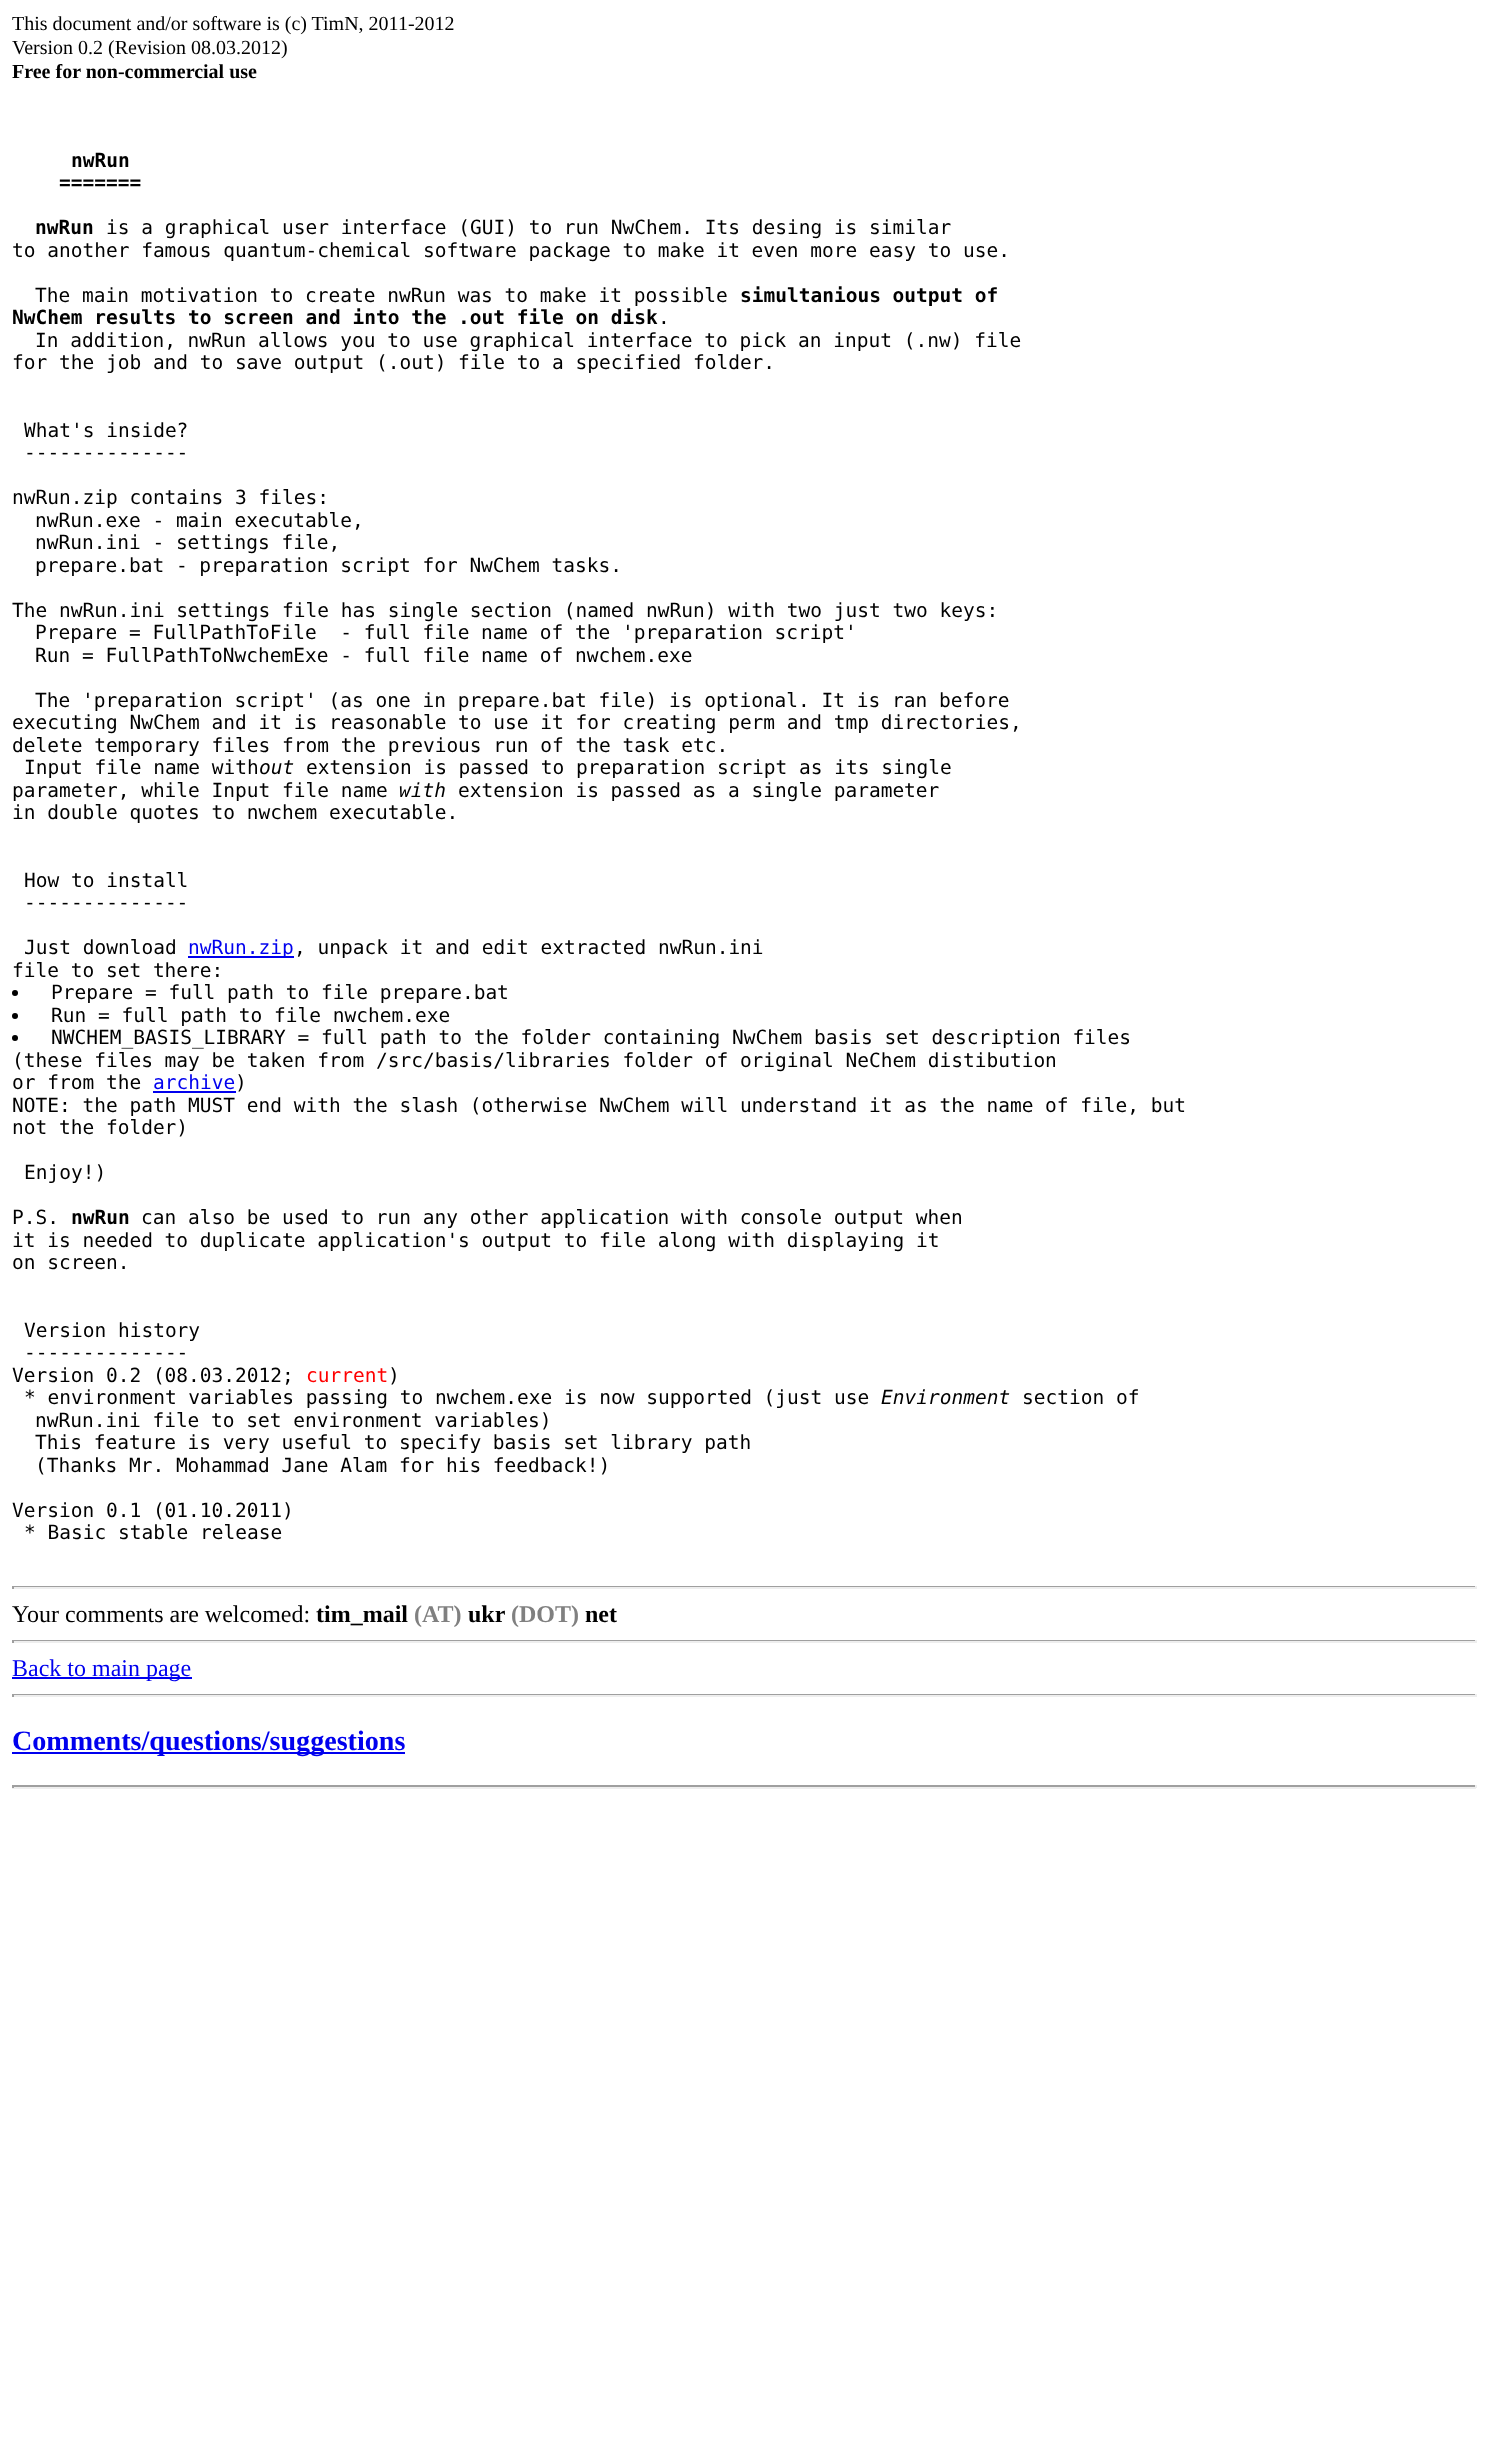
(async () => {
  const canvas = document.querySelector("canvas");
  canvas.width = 1487;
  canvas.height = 2459;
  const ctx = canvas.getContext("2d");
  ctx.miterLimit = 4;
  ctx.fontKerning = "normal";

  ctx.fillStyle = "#ffffff";
  ctx.fillRect(0, 0, 1487, 2459);
  ctx.fillStyle = "#0000ee";
  ctx.fillRect(188, 956, 106, 2);
  ctx.fillStyle = "#000000";
  ctx.beginPath();
  ctx.arc(15, 993, 3, 0, Math.PI * 2);
  ctx.fill();
  ctx.beginPath();
  ctx.arc(15, 1016, 3, 0, Math.PI * 2);
  ctx.fill();
  ctx.beginPath();
  ctx.arc(15, 1038, 3, 0, Math.PI * 2);
  ctx.fill();
  for (const [x, y, w, h, color] of [
    [153, 1091, 83, 2, "#0000ee"],
    [12, 1586, 1464, 1, "#9f9f9f"],
    [1475, 1586, 2, 3, "#eeeeee"],
    [12, 1587, 1464, 2, "#eeeeee"],
    [12, 1586, 2, 3, "#9f9f9f"],
    [12, 1640, 1464, 1, "#9f9f9f"],
    [1475, 1640, 2, 3, "#eeeeee"],
    [12, 1641, 1464, 2, "#eeeeee"],
    [12, 1640, 2, 3, "#9f9f9f"],
    [12, 1677, 180, 2, "#0000ee"],
    [12, 1694, 1464, 1, "#9f9f9f"],
    [1475, 1694, 2, 3, "#eeeeee"],
    [12, 1695, 1464, 2, "#eeeeee"],
    [12, 1694, 2, 3, "#9f9f9f"],
    [12, 1752, 393, 2, "#0000ee"],
    [12, 1785, 1464, 2, "#9f9f9f"],
    [1475, 1785, 2, 3, "#eeeeee"],
    [12, 1787, 1464, 2, "#eeeeee"],
    [12, 1785, 2, 3, "#9f9f9f"],
  ]) {
    ctx.fillStyle = color;
    ctx.fillRect(x, y, w, h);
  }
  ctx.font = "20px Liberation Serif";
  ctx.fillStyle = "#000000";
  ctx.fillText("This document and/or software is (c) TimN, 2011-2012", 12, 30);
  ctx.fillText("Version 0.2 (Revision 08.03.2012)", 12, 54);
  ctx.font = "bold 20px Liberation Serif";
  ctx.fillText("Free for non-commercial use", 12, 78);
  ctx.font = "bold 19.5px DejaVu Sans Mono";
  for (const [text, x, y] of [
    ["nwRun", 71, 167],
    ["=======", 59, 189],
    ["nwRun", 35, 234],
  ]) {
    ctx.fillText(text, x, y);
  }
  ctx.font = "19.5px DejaVu Sans Mono";
  for (const [text, x, y] of [
    ["is a graphical user interface (GUI) to run NwChem. Its desing is similar", 106, 234],
    ["to another famous quantum-chemical software package to make it even more easy to use.", 12, 257],
    ["The main motivation to create nwRun was to make it possible", 35, 302],
  ]) {
    ctx.fillText(text, x, y);
  }
  ctx.font = "bold 19.5px DejaVu Sans Mono";
  ctx.fillText("simultanious output of", 740, 302);
  ctx.fillText("NwChem results to screen and into the .out file on disk", 12, 324);
  ctx.font = "19.5px DejaVu Sans Mono";
  for (const [text, x, y] of [
    [".", 658, 324],
    ["In addition, nwRun allows you to use graphical interface to pick an input (.nw) file", 35, 347],
    ["for the job and to save output (.out) file to a specified folder.", 12, 369],
    ["What's inside?", 24, 437],
    ["--------------", 24, 459],
    ["nwRun.zip contains 3 files:", 12, 504],
    ["nwRun.exe - main executable,", 35, 527],
    ["nwRun.ini - settings file,", 35, 549],
    ["prepare.bat - preparation script for NwChem tasks.", 35, 572],
    ["The nwRun.ini settings file has single section (named nwRun) with two just two keys:", 12, 617],
    ["Prepare = FullPathToFile  - full file name of the 'preparation script'", 35, 639],
    ["Run = FullPathToNwchemExe - full file name of nwchem.exe", 35, 662],
    ["The 'preparation script' (as one in prepare.bat file) is optional. It is ran before", 35, 707],
    ["executing NwChem and it is reasonable to use it for creating perm and tmp directories,", 12, 729],
    ["delete temporary files from the previous run of the task etc.", 12, 752],
    ["Input file name with", 24, 774],
  ]) {
    ctx.fillText(text, x, y);
  }
  ctx.font = "italic 19.5px DejaVu Sans Mono";
  ctx.fillText("out", 259, 774);
  ctx.font = "19.5px DejaVu Sans Mono";
  ctx.fillText("extension is passed to preparation script as its single", 306, 774);
  ctx.fillText("parameter, while Input file name", 12, 797);
  ctx.font = "italic 19.5px DejaVu Sans Mono";
  ctx.fillText("with", 399, 797);
  ctx.font = "19.5px DejaVu Sans Mono";
  for (const [text, x, y] of [
    ["extension is passed as a single parameter", 458, 797],
    ["in double quotes to nwchem executable.", 12, 819],
    ["How to install", 24, 887],
    ["--------------", 24, 909],
    ["Just download", 24, 954],
  ]) {
    ctx.fillText(text, x, y);
  }
  ctx.fillStyle = "#0000ee";
  ctx.fillText("nwRun.zip", 188, 954);
  ctx.fillStyle = "#000000";
  for (const [text, x, y] of [
    [", unpack it and edit extracted nwRun.ini", 294, 954],
    ["file to set there:", 12, 977],
    ["Prepare = full path to file prepare.bat", 51, 999],
    ["Run = full path to file nwchem.exe", 51, 1022],
    ["NWCHEM_BASIS_LIBRARY = full path to the folder containing NwChem basis set description files", 51, 1044],
    ["(these files may be taken from /src/basis/libraries folder of original NeChem distibution", 12, 1067],
    ["or from the", 12, 1089],
  ]) {
    ctx.fillText(text, x, y);
  }
  ctx.fillStyle = "#0000ee";
  ctx.fillText("archive", 153, 1089);
  ctx.fillStyle = "#000000";
  for (const [text, x, y] of [
    [")", 235, 1089],
    ["NOTE: the path MUST end with the slash (otherwise NwChem will understand it as the name of file, but", 12, 1112],
    ["not the folder)", 12, 1134],
    ["Enjoy!)", 24, 1179],
    ["P.S.", 12, 1224],
  ]) {
    ctx.fillText(text, x, y);
  }
  ctx.font = "bold 19.5px DejaVu Sans Mono";
  ctx.fillText("nwRun", 71, 1224);
  ctx.font = "19.5px DejaVu Sans Mono";
  for (const [text, x, y] of [
    ["can also be used to run any other application with console output when", 141, 1224],
    ["it is needed to duplicate application's output to file along with displaying it", 12, 1247],
    ["on screen.", 12, 1269],
    ["Version history", 24, 1337],
    ["--------------", 24, 1359],
    ["Version 0.2 (08.03.2012;", 12, 1382],
  ]) {
    ctx.fillText(text, x, y);
  }
  ctx.fillStyle = "#ff0000";
  ctx.fillText("current", 306, 1382);
  ctx.fillStyle = "#000000";
  ctx.fillText(")", 388, 1382);
  ctx.fillText("* environment variables passing to nwchem.exe is now supported (just use", 24, 1404);
  ctx.font = "italic 19.5px DejaVu Sans Mono";
  ctx.fillText("Environment", 881, 1404);
  ctx.font = "19.5px DejaVu Sans Mono";
  for (const [text, x, y] of [
    ["section of", 1022, 1404],
    ["nwRun.ini file to set environment variables)", 35, 1427],
    ["This feature is very useful to specify basis set library path", 35, 1449],
    ["(Thanks Mr. Mohammad Jane Alam for his feedback!)", 35, 1472],
    ["Version 0.1 (01.10.2011)", 12, 1517],
    ["* Basic stable release", 24, 1539],
  ]) {
    ctx.fillText(text, x, y);
  }
  ctx.font = "24px Liberation Serif";
  ctx.fillText("Your comments are welcomed:", 12, 1622);
  ctx.font = "bold 24px Liberation Serif";
  ctx.fillText("tim_mail", 316, 1622);
  ctx.fillStyle = "#808080";
  ctx.fillText("(AT)", 414, 1622);
  ctx.fillStyle = "#000000";
  ctx.fillText("ukr", 468, 1622);
  ctx.fillStyle = "#808080";
  ctx.fillText("(DOT)", 511, 1622);
  ctx.fillStyle = "#000000";
  ctx.fillText("net", 585, 1622);
  ctx.font = "24px Liberation Serif";
  ctx.fillStyle = "#0000ee";
  ctx.fillText("Back to main page", 12, 1676);
  ctx.font = "bold 28.1px Liberation Serif";
  ctx.fillText("Comments/questions/suggestions", 12, 1750);
})();
